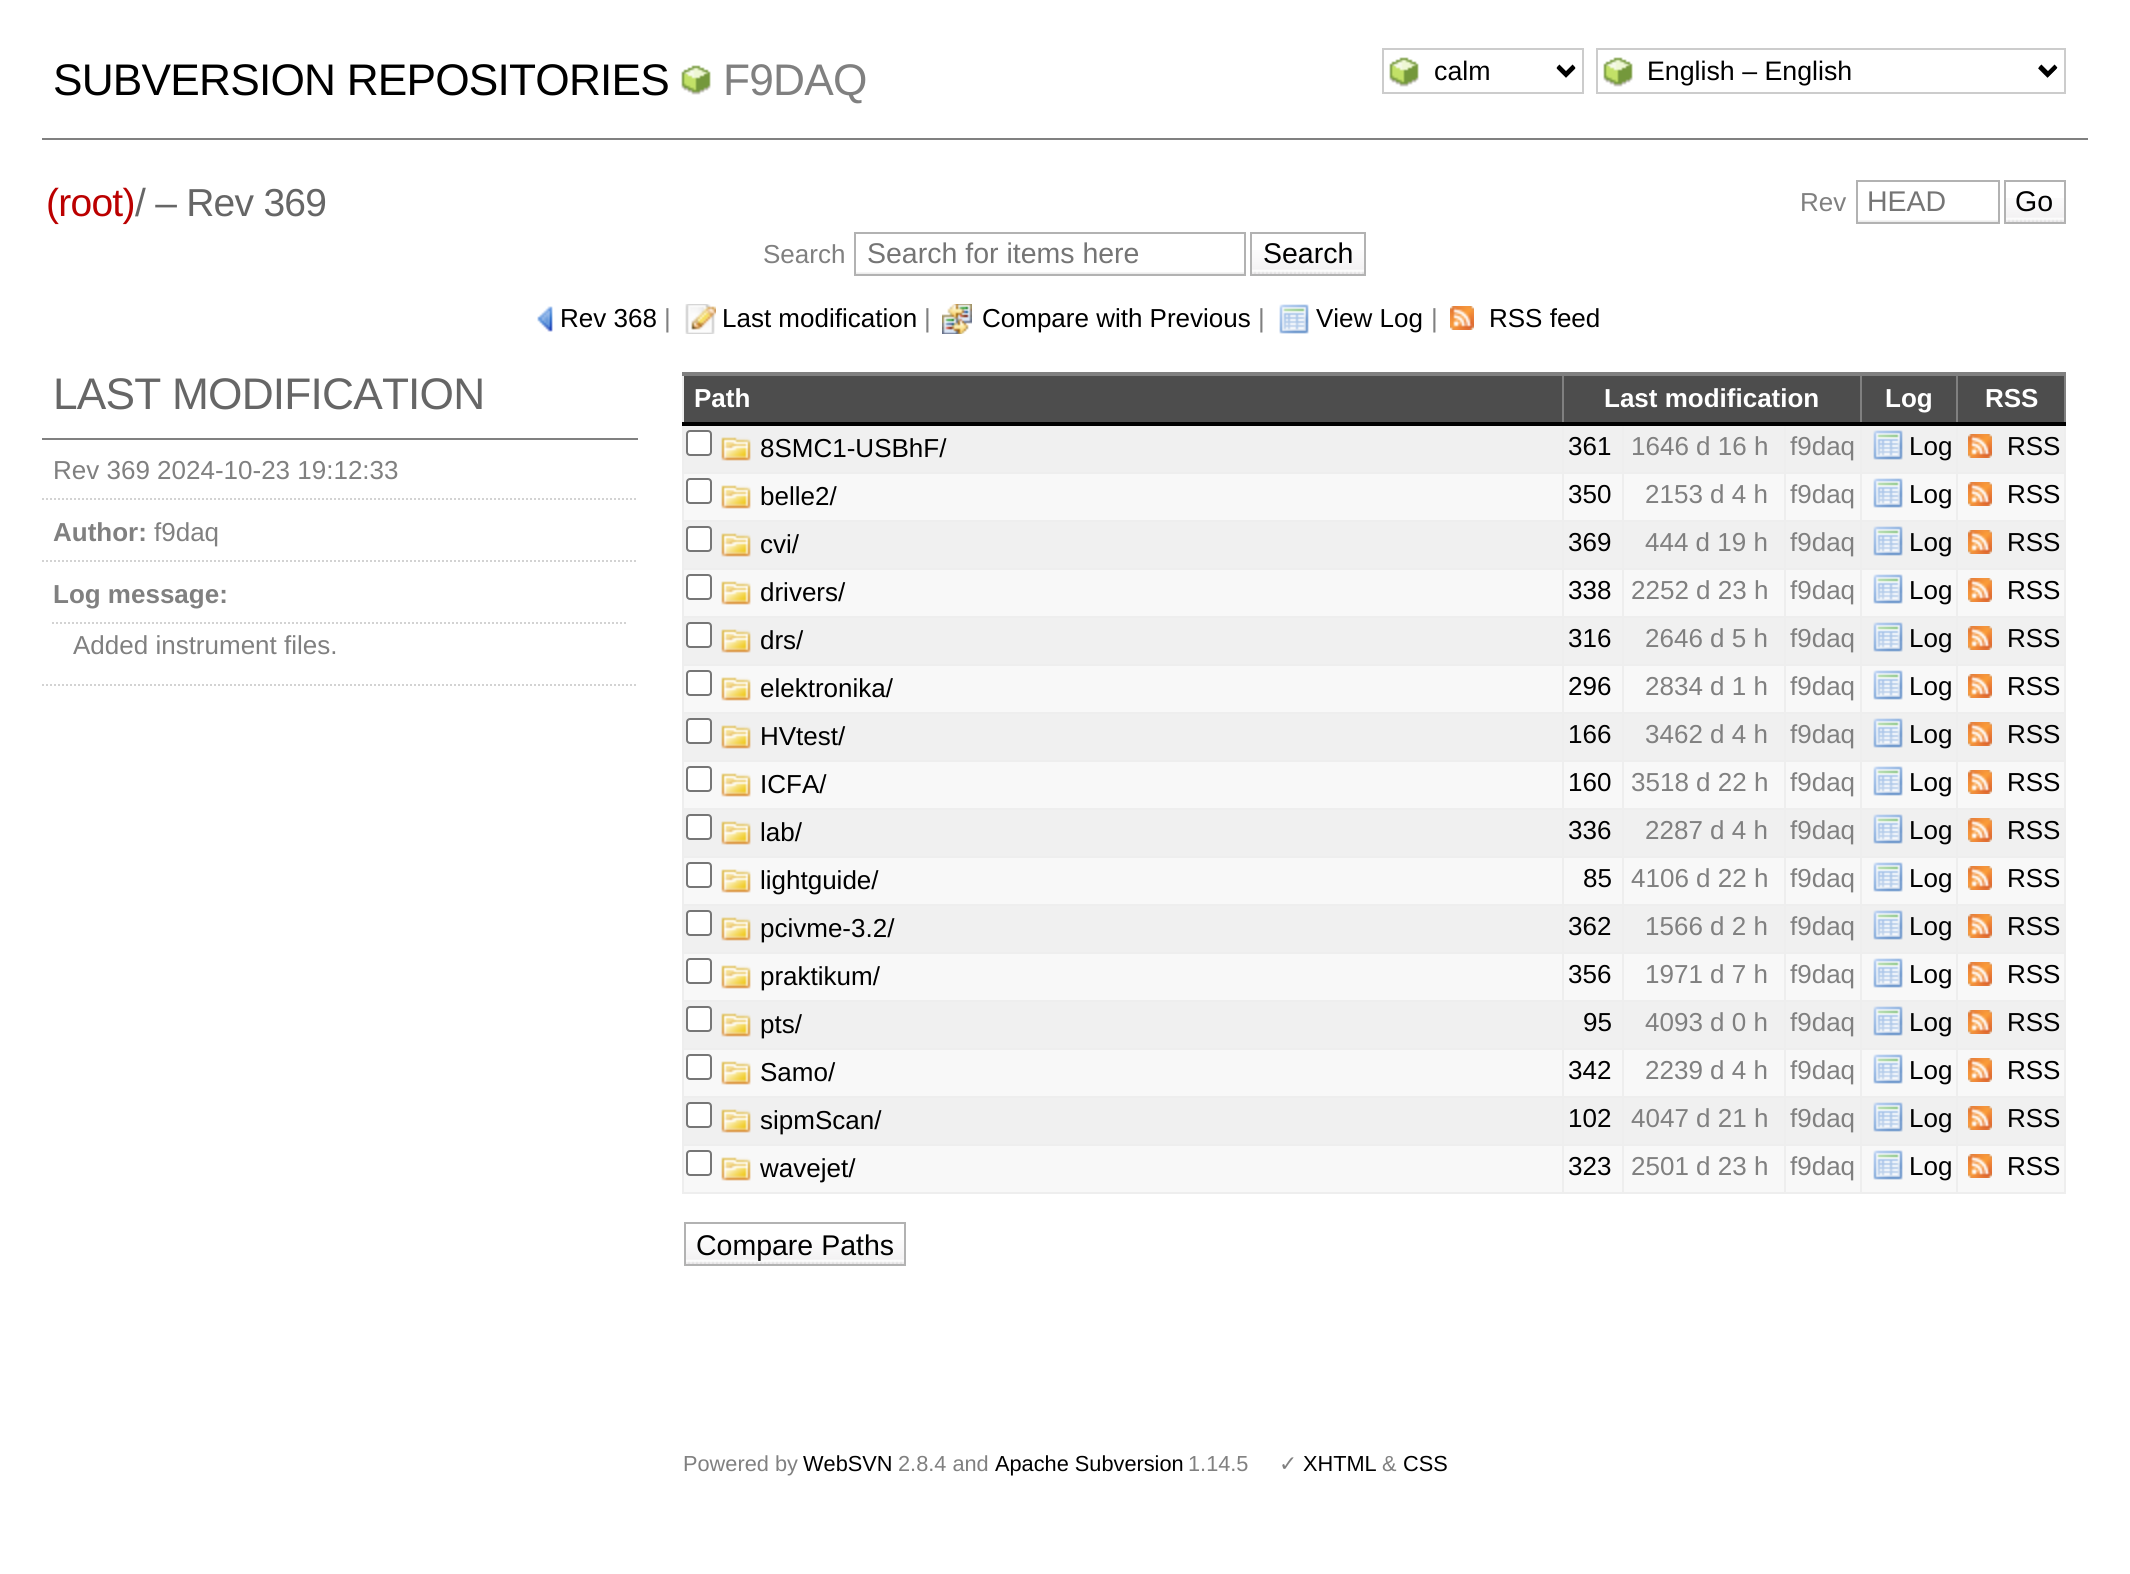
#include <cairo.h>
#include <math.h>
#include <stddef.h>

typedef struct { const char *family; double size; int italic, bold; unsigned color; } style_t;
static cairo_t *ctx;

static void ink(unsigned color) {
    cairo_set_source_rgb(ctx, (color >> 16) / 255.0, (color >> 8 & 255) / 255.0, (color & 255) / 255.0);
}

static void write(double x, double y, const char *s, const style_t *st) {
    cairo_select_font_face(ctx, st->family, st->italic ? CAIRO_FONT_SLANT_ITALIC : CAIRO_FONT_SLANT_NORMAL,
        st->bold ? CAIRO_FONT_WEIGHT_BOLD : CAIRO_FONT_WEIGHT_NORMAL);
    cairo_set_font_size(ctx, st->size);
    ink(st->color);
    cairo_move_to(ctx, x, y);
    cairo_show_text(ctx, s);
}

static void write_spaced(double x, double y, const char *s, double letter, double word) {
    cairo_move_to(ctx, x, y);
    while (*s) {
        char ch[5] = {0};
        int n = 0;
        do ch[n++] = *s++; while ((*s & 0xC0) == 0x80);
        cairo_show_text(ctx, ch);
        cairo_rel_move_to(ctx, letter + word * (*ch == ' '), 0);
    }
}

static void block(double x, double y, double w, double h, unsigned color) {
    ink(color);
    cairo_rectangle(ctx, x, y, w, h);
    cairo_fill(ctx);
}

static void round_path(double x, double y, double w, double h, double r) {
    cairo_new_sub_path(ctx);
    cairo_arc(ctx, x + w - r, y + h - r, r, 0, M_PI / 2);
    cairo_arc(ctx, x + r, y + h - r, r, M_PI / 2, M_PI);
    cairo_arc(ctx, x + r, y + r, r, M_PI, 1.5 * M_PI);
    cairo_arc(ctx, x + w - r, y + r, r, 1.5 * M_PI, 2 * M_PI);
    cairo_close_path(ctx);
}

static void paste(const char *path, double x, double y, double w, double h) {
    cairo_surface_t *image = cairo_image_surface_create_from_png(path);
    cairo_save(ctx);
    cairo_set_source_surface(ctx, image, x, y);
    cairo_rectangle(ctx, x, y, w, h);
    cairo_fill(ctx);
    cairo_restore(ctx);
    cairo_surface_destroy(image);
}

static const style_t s1 = {"Liberation Sans", 26.75, 0, 0, 0x000000};
static const style_t s2 = {"Liberation Sans", 26, 0, 0, 0x808080};
static const style_t s3 = {"Liberation Sans", 28.5, 0, 0, 0x757575};
static const style_t s4 = {"Liberation Sans", 28.5, 0, 0, 0x000000};
static const style_t s5 = {"Liberation Sans", 26, 0, 0, 0x000000};
static const style_t s6 = {"Liberation Sans", 26, 0, 1, 0x808080};
static const style_t s7 = {"Liberation Sans", 26, 0, 1, 0xffffff};
static const style_t s8 = {"Liberation Sans", 21.75, 0, 0, 0x808080};
static const style_t s9 = {"Liberation Sans", 21.75, 0, 0, 0x000000};
static const style_t s10 = {"DejaVu Sans", 21.75, 0, 0, 0x808080};

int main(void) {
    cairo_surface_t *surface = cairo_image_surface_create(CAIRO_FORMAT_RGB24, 2130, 1574);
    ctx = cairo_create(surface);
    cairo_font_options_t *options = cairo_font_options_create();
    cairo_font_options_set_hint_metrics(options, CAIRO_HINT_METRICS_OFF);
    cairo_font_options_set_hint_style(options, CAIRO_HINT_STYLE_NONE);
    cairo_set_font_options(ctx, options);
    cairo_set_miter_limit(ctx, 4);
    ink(0xffffff);
    cairo_paint(ctx);
    block(42, 138, 2046, 2, 0x808080);
    cairo_select_font_face(ctx, "Liberation Sans", CAIRO_FONT_SLANT_NORMAL, CAIRO_FONT_WEIGHT_NORMAL);
    cairo_set_font_size(ctx, 44.25);
    ink(0x000000);
    write_spaced(53, 95, "SUBVERSION REPOSITORIES", -0.8, 0);
    paste("pic1.png", 681, 65, 30, 30);
    ink(0x808080);
    write_spaced(723, 95, "F9DAQ", -0.8, 0);
    paste("pic2.png", 1389, 57, 187, 30);
    cairo_rectangle(ctx, 1383, 49, 200, 44);
    ink(0xcccccc);
    cairo_stroke(ctx);
    cairo_new_path(ctx);
    cairo_move_to(ctx, 1558, 67);
    cairo_line_to(ctx, 1566, 75);
    cairo_line_to(ctx, 1574, 67);
    ink(0x000000);
    cairo_set_line_width(ctx, 4);
    cairo_stroke(ctx);
    write(1434, 80, "calm", &s1);
    paste("pic3.png", 1603, 57, 455, 30);
    cairo_rectangle(ctx, 1597, 49, 468, 44);
    ink(0xcccccc);
    cairo_set_line_width(ctx, 2);
    cairo_stroke(ctx);
    cairo_new_path(ctx);
    cairo_move_to(ctx, 2039.5, 67);
    cairo_line_to(ctx, 2047.5, 75);
    cairo_line_to(ctx, 2055.5, 67);
    ink(0x000000);
    cairo_set_line_width(ctx, 4);
    cairo_stroke(ctx);
    write(1647, 80, "English – English", &s1);
    cairo_set_font_size(ctx, 39);
    ink(0xbb0000);
    write_spaced(46, 216, "(root)", -0.75, 0);
    ink(0x666666);
    write_spaced(135, 216, "/ – Rev 369", -0.75, 0);
    write(1800, 211, "Rev", &s2);
    paste("pic4.png", 1858, 220, 140, 2);
    cairo_rectangle(ctx, 1857, 181, 142, 42);
    ink(0xb2b2b2);
    cairo_set_line_width(ctx, 2);
    cairo_stroke(ctx);
    write(1867, 211, "HEAD", &s3);
    paste("pic5.png", 2006, 198, 58, 24);
    cairo_rectangle(ctx, 2005, 181, 60, 42);
    ink(0xb2b2b2);
    cairo_stroke(ctx);
    write(2015, 211, "Go", &s4);
    write(763, 263, "Search", &s2);
    paste("pic6.png", 856, 272, 388, 2);
    cairo_rectangle(ctx, 855, 233, 390, 42);
    ink(0xb2b2b2);
    cairo_stroke(ctx);
    write(867, 263, "Search for items here", &s3);
    paste("pic7.png", 1252, 250, 112, 24);
    cairo_rectangle(ctx, 1251, 233, 114, 42);
    ink(0xb2b2b2);
    cairo_stroke(ctx);
    write(1263, 263, "Search", &s4);
    paste("pic8.png", 537, 306, 16, 26);
    write(560, 327, "Rev 368", &s5);
    write(664, 327, "|", &s2);
    paste("pic9.png", 685, 304, 31, 30);
    write(722, 327, "Last modification", &s5);
    write(924, 327, "|", &s2);
    paste("pic10.png", 942, 304, 30, 30);
    write(982, 327, "Compare with Previous", &s5);
    write(1258, 327, "|", &s2);
    paste("pic11.png", 1279, 304, 30, 30);
    write(1316, 327, "View Log", &s5);
    write(1431, 327, "|", &s2);
    paste("pic12.png", 1450, 306, 24, 24);
    write(1489, 327, "RSS feed", &s5);
    block(42, 438, 596, 2, 0x808080);
    cairo_set_font_size(ctx, 44.25);
    ink(0x666666);
    write_spaced(53, 409, "LAST MODIFICATION", -0.8, 0);
    cairo_new_path(ctx);
    cairo_move_to(ctx, 42, 499);
    cairo_line_to(ctx, 638, 499);
    ink(0xd3d3d3);
    cairo_set_dash(ctx, (double[]){2, 2}, 2, 0);
    cairo_stroke(ctx);
    write(53, 479, "Rev 369 2024-10-23 19:12:33", &s2);
    cairo_new_path(ctx);
    cairo_move_to(ctx, 42, 561);
    cairo_line_to(ctx, 638, 561);
    ink(0xd3d3d3);
    cairo_stroke(ctx);
    write(53, 541, "Author:", &s6);
    write(154, 541, "f9daq", &s2);
    cairo_new_path(ctx);
    cairo_move_to(ctx, 42, 685);
    cairo_line_to(ctx, 638, 685);
    ink(0xd3d3d3);
    cairo_stroke(ctx);
    write(53, 603, "Log message:", &s6);
    cairo_new_path(ctx);
    cairo_move_to(ctx, 52, 623);
    cairo_line_to(ctx, 628, 623);
    ink(0xd3d3d3);
    cairo_stroke(ctx);
    write(73, 654, "Added instrument files.", &s2);
    block(684, 376, 1380, 46, 0x4d4d4d);
    block(1956, 472, 110, 2, 0xeeeeee);
    block(1956, 520, 110, 2, 0xeeeeee);
    block(1956, 568, 110, 2, 0xeeeeee);
    block(1956, 616, 110, 2, 0xeeeeee);
    block(1956, 664, 110, 2, 0xeeeeee);
    block(1956, 712, 110, 2, 0xeeeeee);
    block(1956, 760, 110, 2, 0xeeeeee);
    block(1956, 808, 110, 2, 0xeeeeee);
    block(1956, 856, 110, 2, 0xeeeeee);
    block(1956, 904, 110, 2, 0xeeeeee);
    block(1956, 952, 110, 2, 0xeeeeee);
    block(1956, 1000, 110, 2, 0xeeeeee);
    block(1956, 1048, 110, 2, 0xeeeeee);
    block(1956, 1096, 110, 2, 0xeeeeee);
    block(1956, 1144, 110, 2, 0xeeeeee);
    block(2064, 1144, 2, 50, 0xeeeeee);
    block(1956, 1192, 110, 2, 0xeeeeee);
    block(1956, 1144, 2, 50, 0xeeeeee);
    block(1860, 1144, 98, 2, 0xeeeeee);
    block(1956, 1096, 2, 50, 0xeeeeee);
    block(1860, 1096, 98, 2, 0xeeeeee);
    block(1956, 1048, 2, 50, 0xeeeeee);
    block(1860, 1048, 98, 2, 0xeeeeee);
    block(1956, 1000, 2, 50, 0xeeeeee);
    block(1860, 1000, 98, 2, 0xeeeeee);
    block(1956, 952, 2, 50, 0xeeeeee);
    block(1860, 952, 98, 2, 0xeeeeee);
    block(1956, 904, 2, 50, 0xeeeeee);
    block(1860, 904, 98, 2, 0xeeeeee);
    block(1956, 856, 2, 50, 0xeeeeee);
    block(1860, 856, 98, 2, 0xeeeeee);
    block(1956, 808, 2, 50, 0xeeeeee);
    block(1860, 808, 98, 2, 0xeeeeee);
    block(1956, 760, 2, 50, 0xeeeeee);
    block(1860, 760, 98, 2, 0xeeeeee);
    block(1956, 712, 2, 50, 0xeeeeee);
    block(1860, 712, 98, 2, 0xeeeeee);
    block(1956, 664, 2, 50, 0xeeeeee);
    block(1860, 664, 98, 2, 0xeeeeee);
    block(1956, 616, 2, 50, 0xeeeeee);
    block(1860, 616, 98, 2, 0xeeeeee);
    block(1956, 568, 2, 50, 0xeeeeee);
    block(1860, 568, 98, 2, 0xeeeeee);
    block(1956, 520, 2, 50, 0xeeeeee);
    block(1860, 520, 98, 2, 0xeeeeee);
    block(1956, 472, 2, 50, 0xeeeeee);
    block(1860, 472, 98, 2, 0xeeeeee);
    block(1860, 1192, 98, 2, 0xeeeeee);
    block(1860, 1144, 2, 50, 0xeeeeee);
    block(1784, 1144, 78, 2, 0xeeeeee);
    block(1860, 1096, 2, 50, 0xeeeeee);
    block(1784, 1096, 78, 2, 0xeeeeee);
    block(1860, 1048, 2, 50, 0xeeeeee);
    block(1784, 1048, 78, 2, 0xeeeeee);
    block(1860, 1000, 2, 50, 0xeeeeee);
    block(1784, 1000, 78, 2, 0xeeeeee);
    block(1860, 952, 2, 50, 0xeeeeee);
    block(1784, 952, 78, 2, 0xeeeeee);
    block(1860, 904, 2, 50, 0xeeeeee);
    block(1784, 904, 78, 2, 0xeeeeee);
    block(1860, 856, 2, 50, 0xeeeeee);
    block(1784, 856, 78, 2, 0xeeeeee);
    block(1860, 808, 2, 50, 0xeeeeee);
    block(1784, 808, 78, 2, 0xeeeeee);
    block(1860, 760, 2, 50, 0xeeeeee);
    block(1784, 760, 78, 2, 0xeeeeee);
    block(1860, 712, 2, 50, 0xeeeeee);
    block(1784, 712, 78, 2, 0xeeeeee);
    block(1860, 664, 2, 50, 0xeeeeee);
    block(1784, 664, 78, 2, 0xeeeeee);
    block(1860, 616, 2, 50, 0xeeeeee);
    block(1784, 616, 78, 2, 0xeeeeee);
    block(1860, 568, 2, 50, 0xeeeeee);
    block(1784, 568, 78, 2, 0xeeeeee);
    block(1860, 520, 2, 50, 0xeeeeee);
    block(1784, 520, 78, 2, 0xeeeeee);
    block(1860, 472, 2, 50, 0xeeeeee);
    block(1784, 472, 78, 2, 0xeeeeee);
    block(1784, 1192, 78, 2, 0xeeeeee);
    block(1784, 1144, 2, 50, 0xeeeeee);
    block(1622, 1144, 164, 2, 0xeeeeee);
    block(1784, 1096, 2, 50, 0xeeeeee);
    block(1622, 1096, 164, 2, 0xeeeeee);
    block(1784, 1048, 2, 50, 0xeeeeee);
    block(1622, 1048, 164, 2, 0xeeeeee);
    block(1784, 1000, 2, 50, 0xeeeeee);
    block(1622, 1000, 164, 2, 0xeeeeee);
    block(1784, 952, 2, 50, 0xeeeeee);
    block(1622, 952, 164, 2, 0xeeeeee);
    block(1784, 904, 2, 50, 0xeeeeee);
    block(1622, 904, 164, 2, 0xeeeeee);
    block(1784, 856, 2, 50, 0xeeeeee);
    block(1622, 856, 164, 2, 0xeeeeee);
    block(1784, 808, 2, 50, 0xeeeeee);
    block(1622, 808, 164, 2, 0xeeeeee);
    block(1784, 760, 2, 50, 0xeeeeee);
    block(1622, 760, 164, 2, 0xeeeeee);
    block(1784, 712, 2, 50, 0xeeeeee);
    block(1622, 712, 164, 2, 0xeeeeee);
    block(1784, 664, 2, 50, 0xeeeeee);
    block(1622, 664, 164, 2, 0xeeeeee);
    block(1784, 616, 2, 50, 0xeeeeee);
    block(1622, 616, 164, 2, 0xeeeeee);
    block(1784, 568, 2, 50, 0xeeeeee);
    block(1622, 568, 164, 2, 0xeeeeee);
    block(1784, 520, 2, 50, 0xeeeeee);
    block(1622, 520, 164, 2, 0xeeeeee);
    block(1784, 472, 2, 50, 0xeeeeee);
    block(1622, 472, 164, 2, 0xeeeeee);
    block(1622, 1192, 164, 2, 0xeeeeee);
    block(1622, 1144, 2, 50, 0xeeeeee);
    block(1562, 1144, 62, 2, 0xeeeeee);
    block(1622, 1096, 2, 50, 0xeeeeee);
    block(1562, 1096, 62, 2, 0xeeeeee);
    block(1622, 1048, 2, 50, 0xeeeeee);
    block(1562, 1048, 62, 2, 0xeeeeee);
    block(1622, 1000, 2, 50, 0xeeeeee);
    block(1562, 1000, 62, 2, 0xeeeeee);
    block(1622, 952, 2, 50, 0xeeeeee);
    block(1562, 952, 62, 2, 0xeeeeee);
    block(1622, 904, 2, 50, 0xeeeeee);
    block(1562, 904, 62, 2, 0xeeeeee);
    block(1622, 856, 2, 50, 0xeeeeee);
    block(1562, 856, 62, 2, 0xeeeeee);
    block(1622, 808, 2, 50, 0xeeeeee);
    block(1562, 808, 62, 2, 0xeeeeee);
    block(1622, 760, 2, 50, 0xeeeeee);
    block(1562, 760, 62, 2, 0xeeeeee);
    block(1622, 712, 2, 50, 0xeeeeee);
    block(1562, 712, 62, 2, 0xeeeeee);
    block(1622, 664, 2, 50, 0xeeeeee);
    block(1562, 664, 62, 2, 0xeeeeee);
    block(1622, 616, 2, 50, 0xeeeeee);
    block(1562, 616, 62, 2, 0xeeeeee);
    block(1622, 568, 2, 50, 0xeeeeee);
    block(1562, 568, 62, 2, 0xeeeeee);
    block(1622, 520, 2, 50, 0xeeeeee);
    block(1562, 520, 62, 2, 0xeeeeee);
    block(1622, 472, 2, 50, 0xeeeeee);
    block(1562, 472, 62, 2, 0xeeeeee);
    block(1562, 1192, 62, 2, 0xeeeeee);
    block(1562, 1144, 2, 50, 0xeeeeee);
    block(682, 1144, 882, 2, 0xeeeeee);
    block(1562, 1096, 2, 50, 0xeeeeee);
    block(682, 1096, 882, 2, 0xeeeeee);
    block(1562, 1048, 2, 50, 0xeeeeee);
    block(682, 1048, 882, 2, 0xeeeeee);
    block(1562, 1000, 2, 50, 0xeeeeee);
    block(682, 1000, 882, 2, 0xeeeeee);
    block(1562, 952, 2, 50, 0xeeeeee);
    block(682, 952, 882, 2, 0xeeeeee);
    block(1562, 904, 2, 50, 0xeeeeee);
    block(682, 904, 882, 2, 0xeeeeee);
    block(1562, 856, 2, 50, 0xeeeeee);
    block(682, 856, 882, 2, 0xeeeeee);
    block(1562, 808, 2, 50, 0xeeeeee);
    block(682, 808, 882, 2, 0xeeeeee);
    block(1562, 760, 2, 50, 0xeeeeee);
    block(682, 760, 882, 2, 0xeeeeee);
    block(1562, 712, 2, 50, 0xeeeeee);
    block(682, 712, 882, 2, 0xeeeeee);
    block(1562, 664, 2, 50, 0xeeeeee);
    block(682, 664, 882, 2, 0xeeeeee);
    block(1562, 616, 2, 50, 0xeeeeee);
    block(682, 616, 882, 2, 0xeeeeee);
    block(1562, 568, 2, 50, 0xeeeeee);
    block(682, 568, 882, 2, 0xeeeeee);
    block(1562, 520, 2, 50, 0xeeeeee);
    block(682, 520, 882, 2, 0xeeeeee);
    block(1562, 472, 2, 50, 0xeeeeee);
    block(682, 472, 882, 2, 0xeeeeee);
    block(1562, 424, 2, 50, 0xeeeeee);
    block(1562, 374, 2, 52, 0x808080);
    write(694, 407, "Path", &s7);
    block(1860, 424, 2, 50, 0xeeeeee);
    block(1860, 374, 2, 52, 0x808080);
    write(1604, 407, "Last modification", &s7);
    block(1956, 424, 2, 50, 0xeeeeee);
    block(1956, 374, 2, 52, 0x808080);
    write(1885, 407, "Log", &s7);
    block(2064, 1096, 2, 50, 0xeeeeee);
    block(2064, 1048, 2, 50, 0xeeeeee);
    block(2064, 1000, 2, 50, 0xeeeeee);
    block(2064, 952, 2, 50, 0xeeeeee);
    block(2064, 904, 2, 50, 0xeeeeee);
    block(2064, 856, 2, 50, 0xeeeeee);
    block(2064, 808, 2, 50, 0xeeeeee);
    block(2064, 760, 2, 50, 0xeeeeee);
    block(2064, 712, 2, 50, 0xeeeeee);
    block(2064, 664, 2, 50, 0xeeeeee);
    block(2064, 616, 2, 50, 0xeeeeee);
    block(2064, 568, 2, 50, 0xeeeeee);
    block(2064, 520, 2, 50, 0xeeeeee);
    block(2064, 424, 2, 98, 0xeeeeee);
    block(2064, 374, 2, 52, 0x808080);
    block(682, 1192, 882, 2, 0xeeeeee);
    block(682, 1144, 2, 50, 0xeeeeee);
    block(682, 1096, 2, 50, 0xeeeeee);
    block(682, 1048, 2, 50, 0xeeeeee);
    block(682, 1000, 2, 50, 0xeeeeee);
    block(682, 952, 2, 50, 0xeeeeee);
    block(682, 904, 2, 50, 0xeeeeee);
    block(682, 856, 2, 50, 0xeeeeee);
    block(682, 808, 2, 50, 0xeeeeee);
    block(682, 760, 2, 50, 0xeeeeee);
    block(682, 712, 2, 50, 0xeeeeee);
    block(682, 664, 2, 50, 0xeeeeee);
    block(682, 616, 2, 50, 0xeeeeee);
    block(682, 568, 2, 50, 0xeeeeee);
    block(682, 520, 2, 50, 0xeeeeee);
    block(682, 374, 2, 148, 0xeeeeee);
    block(682, 372, 1384, 4, 0x808080);
    block(1622, 424, 2, 50, 0xeeeeee);
    block(1784, 424, 2, 50, 0xeeeeee);
    block(682, 422, 1384, 4, 0x000000);
    write(1985, 407, "RSS", &s7);
    block(684, 426, 878, 46, 0xf0f0f0);
    ink(0xffffff);
    round_path(687, 431, 24, 24, 3);
    cairo_fill_preserve(ctx);
    ink(0x767676);
    cairo_set_dash(ctx, NULL, 0, 0);
    cairo_stroke(ctx);
    paste("pic13.png", 721, 437, 30, 24);
    write(760, 457, "8SMC1-USBhF/", &s5);
    block(1564, 426, 58, 46, 0xf0f0f0);
    write(1568, 455, "361", &s5);
    block(1624, 426, 160, 46, 0xf0f0f0);
    write(1631, 455, "1646 d 16 h", &s2);
    block(1786, 426, 74, 46, 0xf0f0f0);
    write(1790, 455, "f9daq", &s2);
    block(1862, 426, 94, 46, 0xf0f0f0);
    paste("pic14.png", 1873, 430, 30, 30);
    write(1909, 455, "Log", &s5);
    block(1958, 426, 106, 46, 0xf0f0f0);
    paste("pic15.png", 1968, 434, 24, 24);
    write(2007, 455, "RSS", &s5);
    block(684, 474, 878, 46, 0xf8f8f8);
    ink(0xffffff);
    round_path(687, 479, 24, 24, 3);
    cairo_fill_preserve(ctx);
    ink(0x767676);
    cairo_stroke(ctx);
    paste("pic16.png", 721, 485, 30, 24);
    write(760, 505, "belle2/", &s5);
    block(1564, 474, 58, 46, 0xf8f8f8);
    write(1568, 503, "350", &s5);
    block(1624, 474, 160, 46, 0xf8f8f8);
    write(1645, 503, "2153 d 4 h", &s2);
    block(1786, 474, 74, 46, 0xf8f8f8);
    write(1790, 503, "f9daq", &s2);
    block(1862, 474, 94, 46, 0xf8f8f8);
    paste("pic17.png", 1873, 478, 30, 30);
    write(1909, 503, "Log", &s5);
    block(1958, 474, 106, 46, 0xf8f8f8);
    paste("pic18.png", 1968, 482, 24, 24);
    write(2007, 503, "RSS", &s5);
    block(684, 522, 878, 46, 0xf0f0f0);
    ink(0xffffff);
    round_path(687, 527, 24, 24, 3);
    cairo_fill_preserve(ctx);
    ink(0x767676);
    cairo_stroke(ctx);
    paste("pic13.png", 721, 533, 30, 24);
    write(760, 553, "cvi/", &s5);
    block(1564, 522, 58, 46, 0xf0f0f0);
    write(1568, 551, "369", &s5);
    block(1624, 522, 160, 46, 0xf0f0f0);
    write(1645, 551, "444 d 19 h", &s2);
    block(1786, 522, 74, 46, 0xf0f0f0);
    write(1790, 551, "f9daq", &s2);
    block(1862, 522, 94, 46, 0xf0f0f0);
    paste("pic14.png", 1873, 526, 30, 30);
    write(1909, 551, "Log", &s5);
    block(1958, 522, 106, 46, 0xf0f0f0);
    paste("pic15.png", 1968, 530, 24, 24);
    write(2007, 551, "RSS", &s5);
    block(684, 570, 878, 46, 0xf8f8f8);
    ink(0xffffff);
    round_path(687, 575, 24, 24, 3);
    cairo_fill_preserve(ctx);
    ink(0x767676);
    cairo_stroke(ctx);
    paste("pic16.png", 721, 581, 30, 24);
    write(760, 601, "drivers/", &s5);
    block(1564, 570, 58, 46, 0xf8f8f8);
    write(1568, 599, "338", &s5);
    block(1624, 570, 160, 46, 0xf8f8f8);
    write(1631, 599, "2252 d 23 h", &s2);
    block(1786, 570, 74, 46, 0xf8f8f8);
    write(1790, 599, "f9daq", &s2);
    block(1862, 570, 94, 46, 0xf8f8f8);
    paste("pic17.png", 1873, 574, 30, 30);
    write(1909, 599, "Log", &s5);
    block(1958, 570, 106, 46, 0xf8f8f8);
    paste("pic18.png", 1968, 578, 24, 24);
    write(2007, 599, "RSS", &s5);
    block(684, 618, 878, 46, 0xf0f0f0);
    ink(0xffffff);
    round_path(687, 623, 24, 24, 3);
    cairo_fill_preserve(ctx);
    ink(0x767676);
    cairo_stroke(ctx);
    paste("pic13.png", 721, 629, 30, 24);
    write(760, 649, "drs/", &s5);
    block(1564, 618, 58, 46, 0xf0f0f0);
    write(1568, 647, "316", &s5);
    block(1624, 618, 160, 46, 0xf0f0f0);
    write(1645, 647, "2646 d 5 h", &s2);
    block(1786, 618, 74, 46, 0xf0f0f0);
    write(1790, 647, "f9daq", &s2);
    block(1862, 618, 94, 46, 0xf0f0f0);
    paste("pic14.png", 1873, 622, 30, 30);
    write(1909, 647, "Log", &s5);
    block(1958, 618, 106, 46, 0xf0f0f0);
    paste("pic15.png", 1968, 626, 24, 24);
    write(2007, 647, "RSS", &s5);
    block(684, 666, 878, 46, 0xf8f8f8);
    ink(0xffffff);
    round_path(687, 671, 24, 24, 3);
    cairo_fill_preserve(ctx);
    ink(0x767676);
    cairo_stroke(ctx);
    paste("pic16.png", 721, 677, 30, 24);
    write(760, 697, "elektronika/", &s5);
    block(1564, 666, 58, 46, 0xf8f8f8);
    write(1568, 695, "296", &s5);
    block(1624, 666, 160, 46, 0xf8f8f8);
    write(1645, 695, "2834 d 1 h", &s2);
    block(1786, 666, 74, 46, 0xf8f8f8);
    write(1790, 695, "f9daq", &s2);
    block(1862, 666, 94, 46, 0xf8f8f8);
    paste("pic17.png", 1873, 670, 30, 30);
    write(1909, 695, "Log", &s5);
    block(1958, 666, 106, 46, 0xf8f8f8);
    paste("pic18.png", 1968, 674, 24, 24);
    write(2007, 695, "RSS", &s5);
    block(684, 714, 878, 46, 0xf0f0f0);
    ink(0xffffff);
    round_path(687, 719, 24, 24, 3);
    cairo_fill_preserve(ctx);
    ink(0x767676);
    cairo_stroke(ctx);
    paste("pic13.png", 721, 725, 30, 24);
    write(760, 745, "HVtest/", &s5);
    block(1564, 714, 58, 46, 0xf0f0f0);
    write(1568, 743, "166", &s5);
    block(1624, 714, 160, 46, 0xf0f0f0);
    write(1645, 743, "3462 d 4 h", &s2);
    block(1786, 714, 74, 46, 0xf0f0f0);
    write(1790, 743, "f9daq", &s2);
    block(1862, 714, 94, 46, 0xf0f0f0);
    paste("pic14.png", 1873, 718, 30, 30);
    write(1909, 743, "Log", &s5);
    block(1958, 714, 106, 46, 0xf0f0f0);
    paste("pic15.png", 1968, 722, 24, 24);
    write(2007, 743, "RSS", &s5);
    block(684, 762, 878, 46, 0xf8f8f8);
    ink(0xffffff);
    round_path(687, 767, 24, 24, 3);
    cairo_fill_preserve(ctx);
    ink(0x767676);
    cairo_stroke(ctx);
    paste("pic16.png", 721, 773, 30, 24);
    write(760, 793, "ICFA/", &s5);
    block(1564, 762, 58, 46, 0xf8f8f8);
    write(1568, 791, "160", &s5);
    block(1624, 762, 160, 46, 0xf8f8f8);
    write(1631, 791, "3518 d 22 h", &s2);
    block(1786, 762, 74, 46, 0xf8f8f8);
    write(1790, 791, "f9daq", &s2);
    block(1862, 762, 94, 46, 0xf8f8f8);
    paste("pic17.png", 1873, 766, 30, 30);
    write(1909, 791, "Log", &s5);
    block(1958, 762, 106, 46, 0xf8f8f8);
    paste("pic18.png", 1968, 770, 24, 24);
    write(2007, 791, "RSS", &s5);
    block(684, 810, 878, 46, 0xf0f0f0);
    ink(0xffffff);
    round_path(687, 815, 24, 24, 3);
    cairo_fill_preserve(ctx);
    ink(0x767676);
    cairo_stroke(ctx);
    paste("pic13.png", 721, 821, 30, 24);
    write(760, 841, "lab/", &s5);
    block(1564, 810, 58, 46, 0xf0f0f0);
    write(1568, 839, "336", &s5);
    block(1624, 810, 160, 46, 0xf0f0f0);
    write(1645, 839, "2287 d 4 h", &s2);
    block(1786, 810, 74, 46, 0xf0f0f0);
    write(1790, 839, "f9daq", &s2);
    block(1862, 810, 94, 46, 0xf0f0f0);
    paste("pic14.png", 1873, 814, 30, 30);
    write(1909, 839, "Log", &s5);
    block(1958, 810, 106, 46, 0xf0f0f0);
    paste("pic15.png", 1968, 818, 24, 24);
    write(2007, 839, "RSS", &s5);
    block(684, 858, 878, 46, 0xf8f8f8);
    ink(0xffffff);
    round_path(687, 863, 24, 24, 3);
    cairo_fill_preserve(ctx);
    ink(0x767676);
    cairo_stroke(ctx);
    paste("pic16.png", 721, 869, 30, 24);
    write(760, 889, "lightguide/", &s5);
    block(1564, 858, 58, 46, 0xf8f8f8);
    write(1583, 887, "85", &s5);
    block(1624, 858, 160, 46, 0xf8f8f8);
    write(1631, 887, "4106 d 22 h", &s2);
    block(1786, 858, 74, 46, 0xf8f8f8);
    write(1790, 887, "f9daq", &s2);
    block(1862, 858, 94, 46, 0xf8f8f8);
    paste("pic17.png", 1873, 862, 30, 30);
    write(1909, 887, "Log", &s5);
    block(1958, 858, 106, 46, 0xf8f8f8);
    paste("pic18.png", 1968, 866, 24, 24);
    write(2007, 887, "RSS", &s5);
    block(684, 906, 878, 46, 0xf0f0f0);
    ink(0xffffff);
    round_path(687, 911, 24, 24, 3);
    cairo_fill_preserve(ctx);
    ink(0x767676);
    cairo_stroke(ctx);
    paste("pic13.png", 721, 917, 30, 24);
    write(760, 937, "pcivme-3.2/", &s5);
    block(1564, 906, 58, 46, 0xf0f0f0);
    write(1568, 935, "362", &s5);
    block(1624, 906, 160, 46, 0xf0f0f0);
    write(1645, 935, "1566 d 2 h", &s2);
    block(1786, 906, 74, 46, 0xf0f0f0);
    write(1790, 935, "f9daq", &s2);
    block(1862, 906, 94, 46, 0xf0f0f0);
    paste("pic14.png", 1873, 910, 30, 30);
    write(1909, 935, "Log", &s5);
    block(1958, 906, 106, 46, 0xf0f0f0);
    paste("pic15.png", 1968, 914, 24, 24);
    write(2007, 935, "RSS", &s5);
    block(684, 954, 878, 46, 0xf8f8f8);
    ink(0xffffff);
    round_path(687, 959, 24, 24, 3);
    cairo_fill_preserve(ctx);
    ink(0x767676);
    cairo_stroke(ctx);
    paste("pic16.png", 721, 965, 30, 24);
    write(760, 985, "praktikum/", &s5);
    block(1564, 954, 58, 46, 0xf8f8f8);
    write(1568, 983, "356", &s5);
    block(1624, 954, 160, 46, 0xf8f8f8);
    write(1645, 983, "1971 d 7 h", &s2);
    block(1786, 954, 74, 46, 0xf8f8f8);
    write(1790, 983, "f9daq", &s2);
    block(1862, 954, 94, 46, 0xf8f8f8);
    paste("pic17.png", 1873, 958, 30, 30);
    write(1909, 983, "Log", &s5);
    block(1958, 954, 106, 46, 0xf8f8f8);
    paste("pic18.png", 1968, 962, 24, 24);
    write(2007, 983, "RSS", &s5);
    block(684, 1002, 878, 46, 0xf0f0f0);
    ink(0xffffff);
    round_path(687, 1007, 24, 24, 3);
    cairo_fill_preserve(ctx);
    ink(0x767676);
    cairo_stroke(ctx);
    paste("pic13.png", 721, 1013, 30, 24);
    write(760, 1033, "pts/", &s5);
    block(1564, 1002, 58, 46, 0xf0f0f0);
    write(1583, 1031, "95", &s5);
    block(1624, 1002, 160, 46, 0xf0f0f0);
    write(1645, 1031, "4093 d 0 h", &s2);
    block(1786, 1002, 74, 46, 0xf0f0f0);
    write(1790, 1031, "f9daq", &s2);
    block(1862, 1002, 94, 46, 0xf0f0f0);
    paste("pic14.png", 1873, 1006, 30, 30);
    write(1909, 1031, "Log", &s5);
    block(1958, 1002, 106, 46, 0xf0f0f0);
    paste("pic15.png", 1968, 1010, 24, 24);
    write(2007, 1031, "RSS", &s5);
    block(684, 1050, 878, 46, 0xf8f8f8);
    ink(0xffffff);
    round_path(687, 1055, 24, 24, 3);
    cairo_fill_preserve(ctx);
    ink(0x767676);
    cairo_stroke(ctx);
    paste("pic16.png", 721, 1061, 30, 24);
    write(760, 1081, "Samo/", &s5);
    block(1564, 1050, 58, 46, 0xf8f8f8);
    write(1568, 1079, "342", &s5);
    block(1624, 1050, 160, 46, 0xf8f8f8);
    write(1645, 1079, "2239 d 4 h", &s2);
    block(1786, 1050, 74, 46, 0xf8f8f8);
    write(1790, 1079, "f9daq", &s2);
    block(1862, 1050, 94, 46, 0xf8f8f8);
    paste("pic17.png", 1873, 1054, 30, 30);
    write(1909, 1079, "Log", &s5);
    block(1958, 1050, 106, 46, 0xf8f8f8);
    paste("pic18.png", 1968, 1058, 24, 24);
    write(2007, 1079, "RSS", &s5);
    block(684, 1098, 878, 46, 0xf0f0f0);
    ink(0xffffff);
    round_path(687, 1103, 24, 24, 3);
    cairo_fill_preserve(ctx);
    ink(0x767676);
    cairo_stroke(ctx);
    paste("pic13.png", 721, 1109, 30, 24);
    write(760, 1129, "sipmScan/", &s5);
    block(1564, 1098, 58, 46, 0xf0f0f0);
    write(1568, 1127, "102", &s5);
    block(1624, 1098, 160, 46, 0xf0f0f0);
    write(1631, 1127, "4047 d 21 h", &s2);
    block(1786, 1098, 74, 46, 0xf0f0f0);
    write(1790, 1127, "f9daq", &s2);
    block(1862, 1098, 94, 46, 0xf0f0f0);
    paste("pic14.png", 1873, 1102, 30, 30);
    write(1909, 1127, "Log", &s5);
    block(1958, 1098, 106, 46, 0xf0f0f0);
    paste("pic15.png", 1968, 1106, 24, 24);
    write(2007, 1127, "RSS", &s5);
    block(684, 1146, 878, 46, 0xf8f8f8);
    ink(0xffffff);
    round_path(687, 1151, 24, 24, 3);
    cairo_fill_preserve(ctx);
    ink(0x767676);
    cairo_stroke(ctx);
    paste("pic16.png", 721, 1157, 30, 24);
    write(760, 1177, "wavejet/", &s5);
    block(1564, 1146, 58, 46, 0xf8f8f8);
    write(1568, 1175, "323", &s5);
    block(1624, 1146, 160, 46, 0xf8f8f8);
    write(1631, 1175, "2501 d 23 h", &s2);
    block(1786, 1146, 74, 46, 0xf8f8f8);
    write(1790, 1175, "f9daq", &s2);
    block(1862, 1146, 94, 46, 0xf8f8f8);
    paste("pic17.png", 1873, 1150, 30, 30);
    write(1909, 1175, "Log", &s5);
    block(1958, 1146, 106, 46, 0xf8f8f8);
    paste("pic18.png", 1968, 1154, 24, 24);
    write(2007, 1175, "RSS", &s5);
    paste("pic19.png", 686, 1240, 218, 24);
    cairo_rectangle(ctx, 685, 1223, 220, 42);
    ink(0xb2b2b2);
    cairo_stroke(ctx);
    write(696, 1255, "Compare Paths", &s4);
    write(683, 1471, "Powered by", &s8);
    write(803, 1471, "WebSVN", &s9);
    write(898, 1471, "2.8.4 and", &s8);
    write(995, 1471, "Apache Subversion", &s9);
    write(1188, 1471, "1.14.5", &s8);
    write(1279, 1471, "✓", &s10);
    write(1303, 1471, "XHTML", &s9);
    write(1382, 1471, "&", &s8);
    write(1403, 1471, "CSS", &s9);
    cairo_surface_write_to_png(surface, "screenshot.png");
    cairo_font_options_destroy(options);
    cairo_destroy(ctx);
    cairo_surface_destroy(surface);
    return 0;
}
